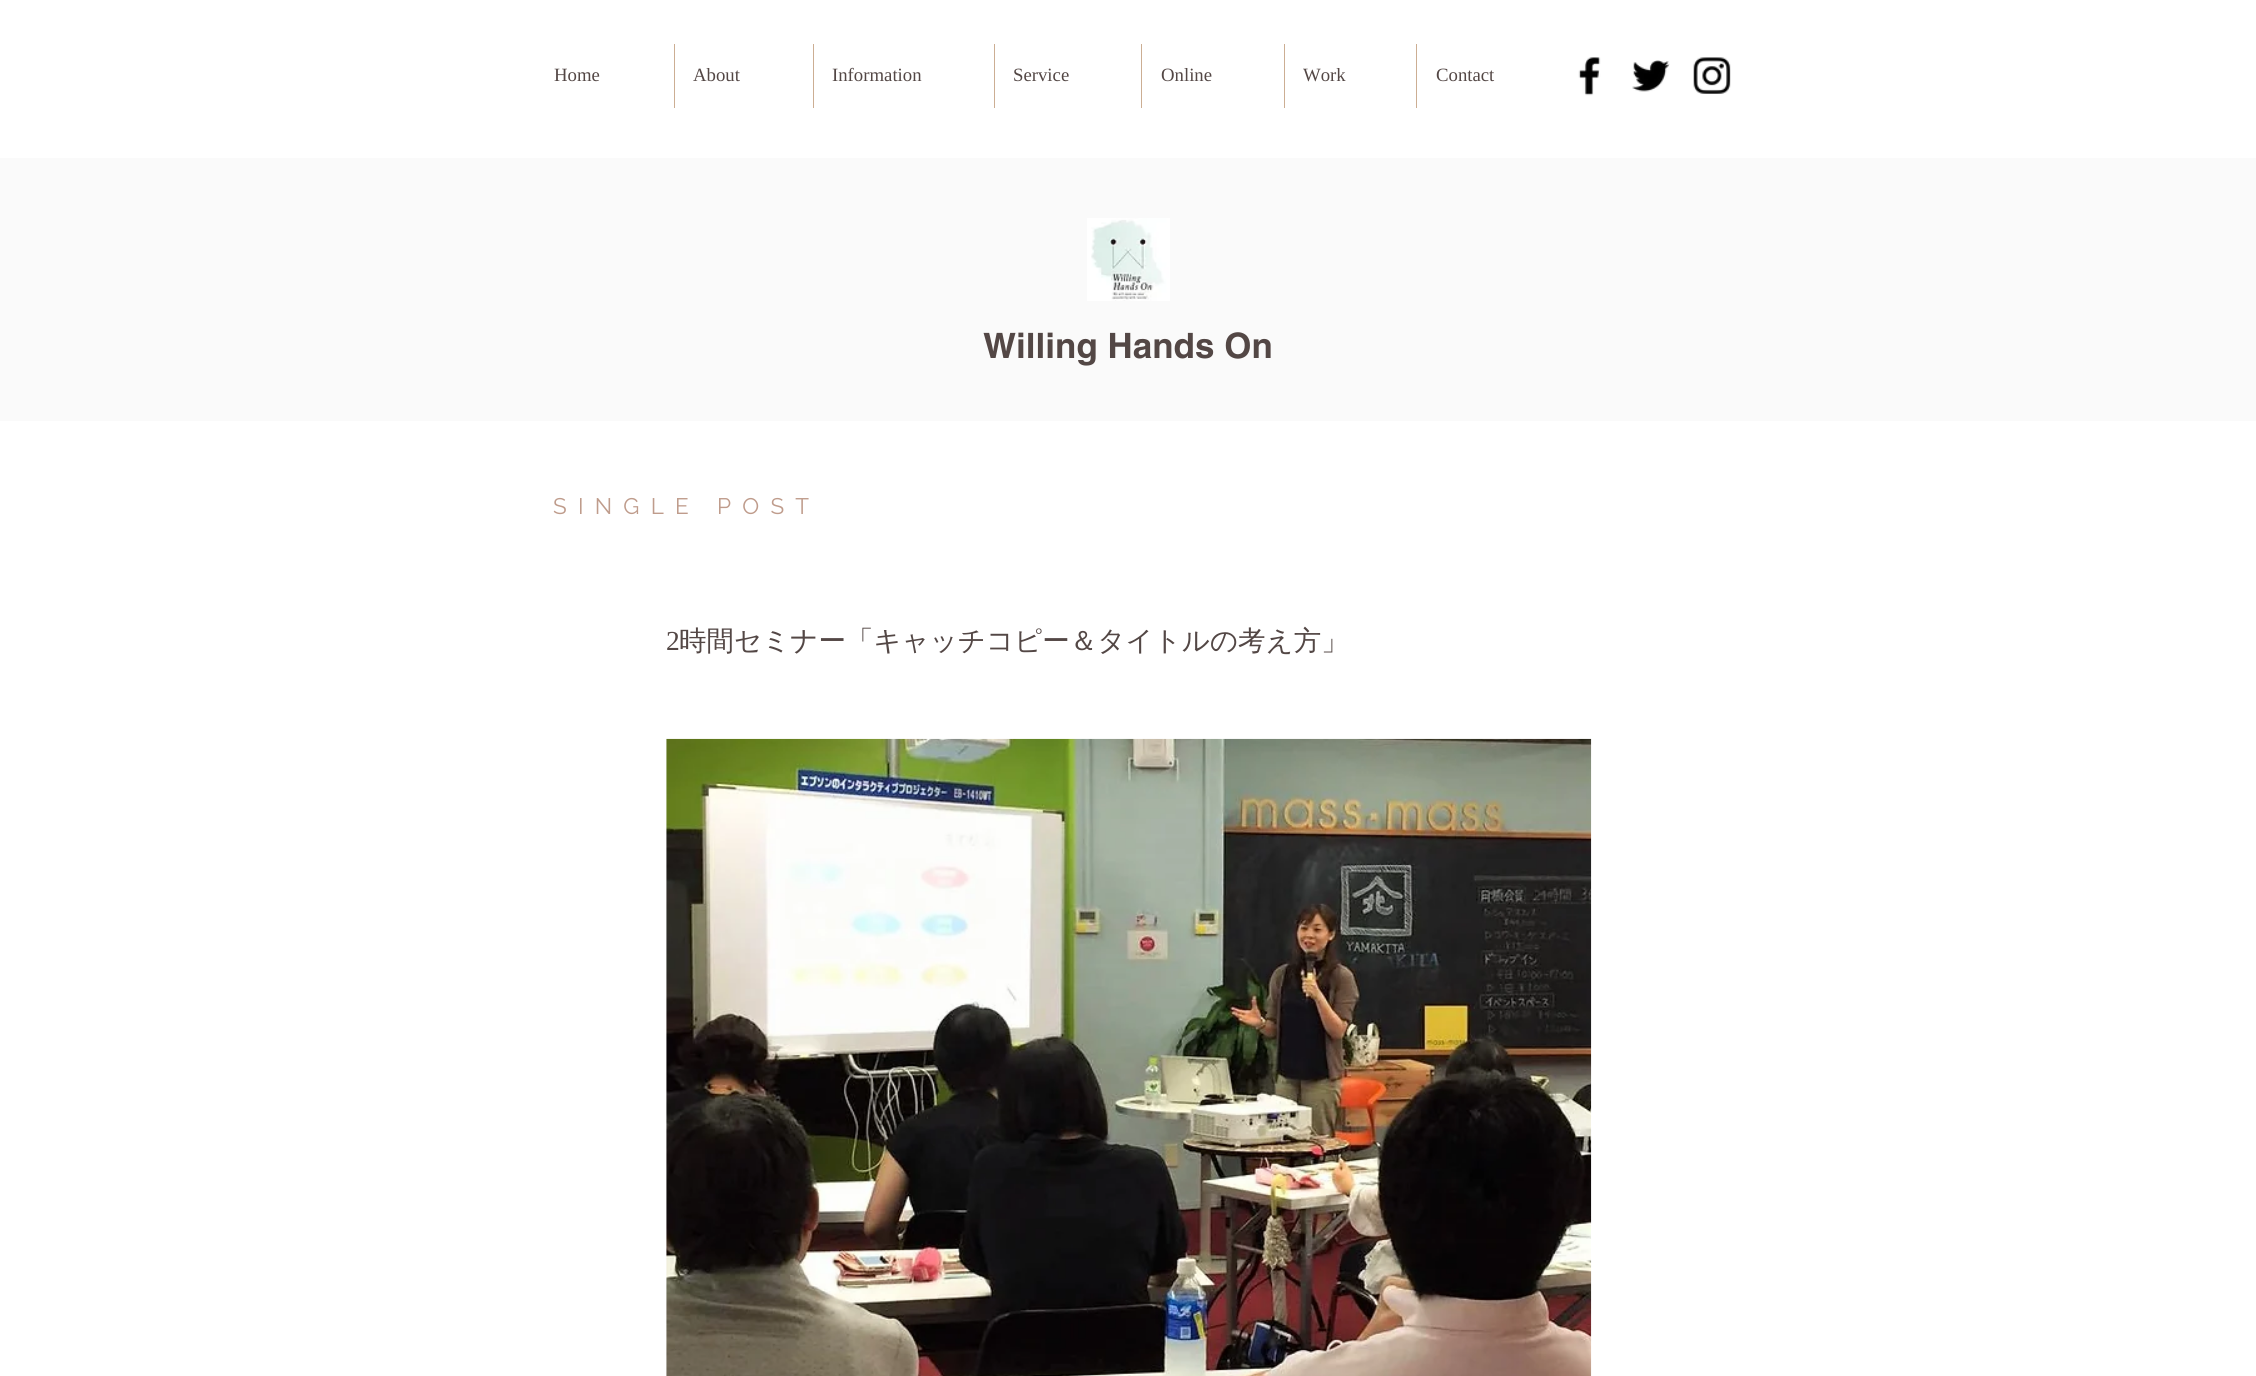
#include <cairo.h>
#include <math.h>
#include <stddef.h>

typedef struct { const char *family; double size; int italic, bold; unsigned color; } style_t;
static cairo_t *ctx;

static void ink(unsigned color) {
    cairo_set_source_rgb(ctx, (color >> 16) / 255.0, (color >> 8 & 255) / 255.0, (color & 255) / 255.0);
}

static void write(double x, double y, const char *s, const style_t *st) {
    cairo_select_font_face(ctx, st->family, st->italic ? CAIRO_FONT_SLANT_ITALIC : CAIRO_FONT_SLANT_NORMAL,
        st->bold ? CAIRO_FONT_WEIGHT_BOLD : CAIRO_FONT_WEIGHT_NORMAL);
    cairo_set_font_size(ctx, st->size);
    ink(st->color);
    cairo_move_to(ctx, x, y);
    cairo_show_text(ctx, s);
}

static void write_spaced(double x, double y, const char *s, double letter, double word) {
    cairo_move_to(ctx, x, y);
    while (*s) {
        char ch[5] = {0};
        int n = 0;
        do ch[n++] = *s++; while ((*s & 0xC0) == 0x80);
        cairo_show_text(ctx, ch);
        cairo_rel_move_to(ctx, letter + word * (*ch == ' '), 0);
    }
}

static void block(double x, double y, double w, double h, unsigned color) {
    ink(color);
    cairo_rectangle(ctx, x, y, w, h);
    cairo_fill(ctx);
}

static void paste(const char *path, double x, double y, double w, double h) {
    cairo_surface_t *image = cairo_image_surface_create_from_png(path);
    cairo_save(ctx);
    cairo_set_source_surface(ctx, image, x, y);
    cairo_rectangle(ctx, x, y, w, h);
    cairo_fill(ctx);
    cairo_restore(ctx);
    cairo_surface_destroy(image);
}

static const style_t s1 = {"Liberation Serif", 18.75, 0, 0, 0x534745};
static const style_t s2 = {"helvetica", 35, 0, 1, 0x534745};
static const style_t s3 = {"Liberation Serif", 27.5, 0, 0, 0x534745};
static const style_t s4 = {"WenQuanYi Zen Hei Medium", 27.5, 0, 0, 0x534745};

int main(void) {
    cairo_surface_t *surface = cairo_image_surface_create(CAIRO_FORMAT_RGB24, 2256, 1376);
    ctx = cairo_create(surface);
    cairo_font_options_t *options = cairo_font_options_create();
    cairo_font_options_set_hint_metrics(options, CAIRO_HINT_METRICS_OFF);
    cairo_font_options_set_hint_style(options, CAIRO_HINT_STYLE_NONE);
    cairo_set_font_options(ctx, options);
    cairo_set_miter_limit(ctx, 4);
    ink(0xffffff);
    cairo_paint(ctx);
    write(554, 81, "Home", &s1);
    block(674, 44, 1, 64, 0xccae93);
    write(693, 81, "About", &s1);
    block(813, 44, 1, 64, 0xccae93);
    write(832, 81, "Information", &s1);
    block(994, 44, 1, 64, 0xccae93);
    write(1013, 81, "Service", &s1);
    block(1141, 44, 1, 64, 0xccae93);
    write(1161, 81, "Online", &s1);
    block(1284, 44, 1, 64, 0xccae93);
    write(1303, 81, "Work", &s1);
    block(1416, 44, 1, 64, 0xccae93);
    write(1436, 81, "Contact", &s1);
    paste("pic1.png", 1578, 57, 23, 39);
    paste("pic2.png", 1632, 60, 38, 32);
    paste("pic3.png", 1693, 57, 38, 37);
    block(0, 158, 2256, 263, 0xfafafa);
    paste("pic4.png", 1087, 218, 83, 83);
    write(983, 358, "Willing Hands On", &s2);
    cairo_select_font_face(ctx, "Raleway", CAIRO_FONT_SLANT_NORMAL, CAIRO_FONT_WEIGHT_NORMAL);
    cairo_set_font_size(ctx, 22.5);
    ink(0xbf9c8c);
    write_spaced(553, 514, "SINGLE POST", 11.25, 0);
    write(666, 650, "2", &s3);
    write(679, 650, "時間セミナー「キャッチコピー＆タイトルの考え方」", &s4);
    paste("pic5.png", 666, 738, 926, 638);
    cairo_surface_write_to_png(surface, "screenshot.png");
    cairo_font_options_destroy(options);
    cairo_destroy(ctx);
    cairo_surface_destroy(surface);
    return 0;
}
